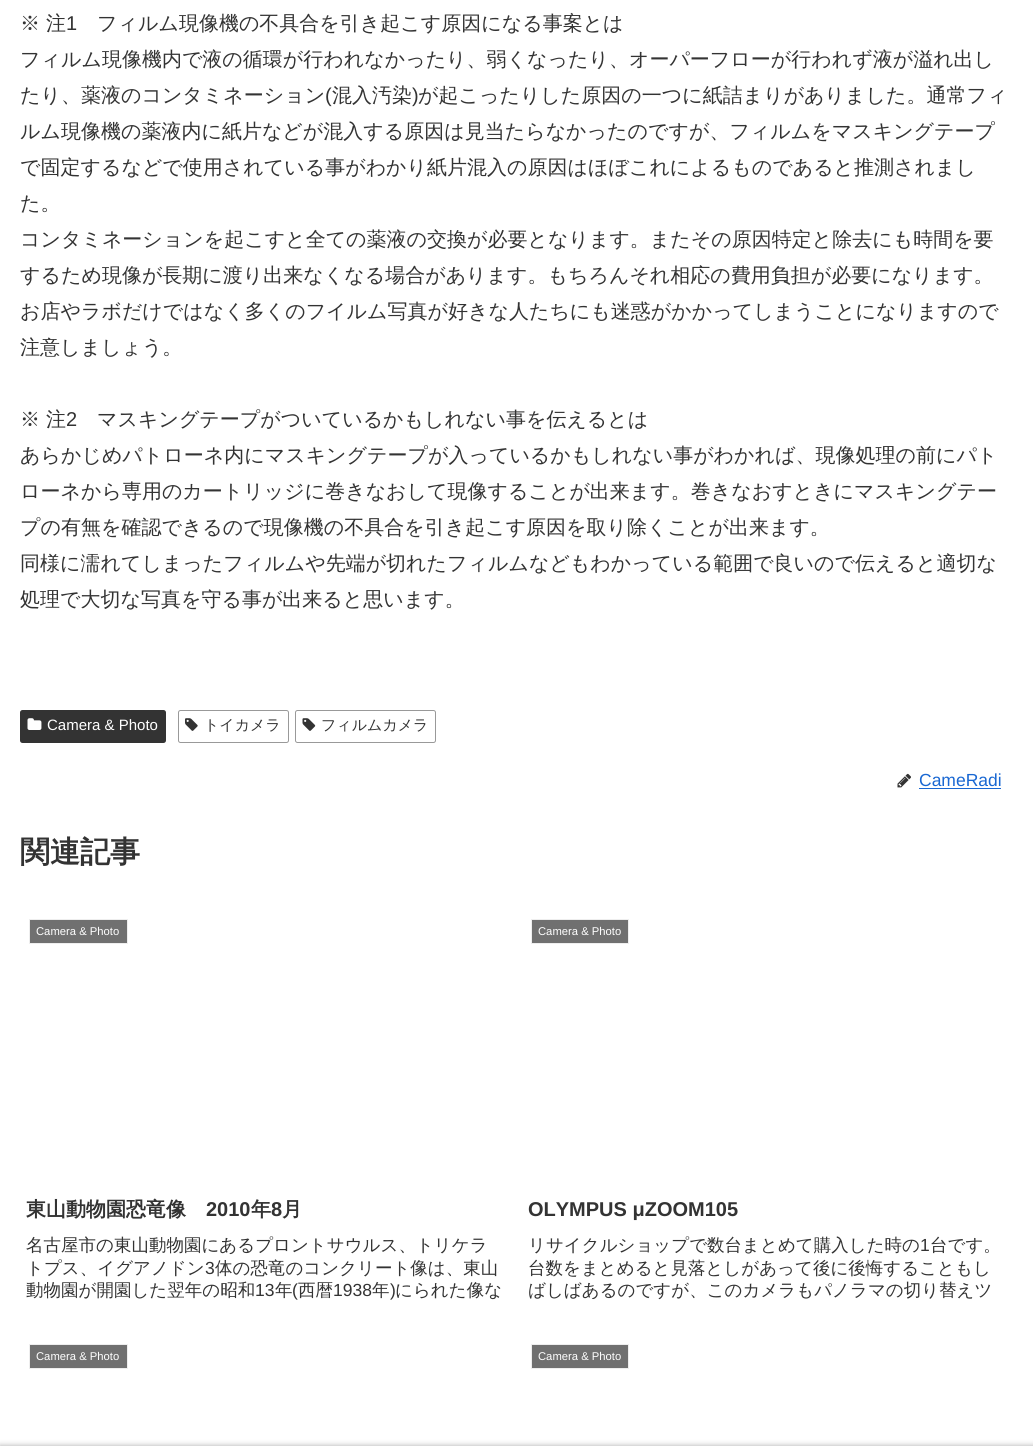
#include <cairo.h>
#include <math.h>
#include <stddef.h>

typedef struct { const char *family; double size; int italic, bold; unsigned color; } style_t;
static cairo_t *ctx;

static void ink(unsigned color) {
    cairo_set_source_rgb(ctx, (color >> 16) / 255.0, (color >> 8 & 255) / 255.0, (color & 255) / 255.0);
}

static void write(double x, double y, const char *s, const style_t *st) {
    cairo_select_font_face(ctx, st->family, st->italic ? CAIRO_FONT_SLANT_ITALIC : CAIRO_FONT_SLANT_NORMAL,
        st->bold ? CAIRO_FONT_WEIGHT_BOLD : CAIRO_FONT_WEIGHT_NORMAL);
    cairo_set_font_size(ctx, st->size);
    ink(st->color);
    cairo_move_to(ctx, x, y);
    cairo_show_text(ctx, s);
}

static void block(double x, double y, double w, double h, unsigned color) {
    ink(color);
    cairo_rectangle(ctx, x, y, w, h);
    cairo_fill(ctx);
}

static void round_path(double x, double y, double w, double h, double r) {
    cairo_new_sub_path(ctx);
    cairo_arc(ctx, x + w - r, y + h - r, r, 0, M_PI / 2);
    cairo_arc(ctx, x + r, y + h - r, r, M_PI / 2, M_PI);
    cairo_arc(ctx, x + r, y + r, r, M_PI, 1.5 * M_PI);
    cairo_arc(ctx, x + w - r, y + r, r, 1.5 * M_PI, 2 * M_PI);
    cairo_close_path(ctx);
}

static void blur_box(double x, double y, double w, double h, double r, double blur, double alpha) {
    cairo_push_group_with_content(ctx, CAIRO_CONTENT_ALPHA);
    cairo_set_operator(ctx, CAIRO_OPERATOR_SOURCE);
    for (int i = 15; i >= -15 && fmin(w, h) + blur * i / 3 > 0; i -= 2) {
        double e = blur * i / 6;
        cairo_set_source_rgba(ctx, 0, 0, 0, alpha * erfc((i - 1) / 8.5) / 2);
        round_path(x - e, y - e, w + 2 * e, h + 2 * e, fmax(0, fmin(r + e + blur * .6, fmin(w, h) / 2 + e)));
        cairo_fill(ctx);
    }
    cairo_pattern_t *soft = cairo_pop_group(ctx);
    cairo_mask(ctx, soft);
    cairo_pattern_destroy(soft);
}

static void paste(const char *path, double x, double y, double w, double h) {
    cairo_surface_t *image = cairo_image_surface_create_from_png(path);
    cairo_save(ctx);
    cairo_set_source_surface(ctx, image, x, y);
    cairo_rectangle(ctx, x, y, w, h);
    cairo_fill(ctx);
    cairo_restore(ctx);
    cairo_surface_destroy(image);
}

static const style_t s1 = {"WenQuanYi Zen Hei Medium", 20, 0, 0, 0x333333};
static const style_t s2 = {"Liberation Sans", 20, 0, 0, 0x333333};
static const style_t s3 = {"Liberation Sans", 15, 0, 0, 0xffffff};
static const style_t s4 = {"WenQuanYi Zen Hei Medium", 15, 0, 0, 0x333333};
static const style_t s5 = {"Liberation Sans", 17.5, 0, 0, 0x1967d2};
static const style_t s6 = {"WenQuanYi Zen Hei", 30, 0, 1, 0x333333};
static const style_t s7 = {"Liberation Sans", 11.25, 0, 0, 0xffffff};
static const style_t s8 = {"WenQuanYi Zen Hei", 20, 0, 1, 0x333333};
static const style_t s9 = {"Liberation Sans", 20, 0, 1, 0x333333};
static const style_t s10 = {"WenQuanYi Zen Hei Medium", 17.5, 0, 0, 0x333333};
static const style_t s11 = {"Liberation Sans", 17.5, 0, 0, 0x333333};

int main(void) {
    cairo_surface_t *surface = cairo_image_surface_create(CAIRO_FORMAT_RGB24, 1033, 1446);
    ctx = cairo_create(surface);
    cairo_font_options_t *options = cairo_font_options_create();
    cairo_font_options_set_hint_metrics(options, CAIRO_HINT_METRICS_OFF);
    cairo_font_options_set_hint_style(options, CAIRO_HINT_STYLE_NONE);
    cairo_set_font_options(ctx, options);
    cairo_set_miter_limit(ctx, 4);
    ink(0xffffff);
    cairo_paint(ctx);
    write(20, 30, "※", &s1);
    write(46, 30, "注", &s1);
    write(66, 30, "1", &s2);
    write(97, 30, "フィルム現像機の不具合を引き起こす原因になる事案とは", &s1);
    write(20, 66, "フィルム現像機内で液の循環が行われなかったり、弱くなったり、オーパーフローが行われず液が溢れ出し", &s1);
    write(20, 102, "たり、薬液のコンタミネーション", &s1);
    write(325, 102, "(", &s2);
    write(332, 102, "混入汚染", &s1);
    write(412, 102, ")", &s2);
    write(418, 102, "が起こったりした原因の一つに紙詰まりがありました。通常フィ", &s1);
    write(20, 138, "ルム現像機の薬液内に紙片などが混入する原因は見当たらなかったのですが、フィルムをマスキングテープ", &s1);
    write(20, 174, "で固定するなどで使用されている事がわかり紙片混入の原因はほぼこれによるものであると推測されまし", &s1);
    write(20, 210, "た。", &s1);
    write(20, 246, "コンタミネーションを起こすと全ての薬液の交換が必要となります。またその原因特定と除去にも時間を要", &s1);
    write(20, 282, "するため現像が長期に渡り出来なくなる場合があります。もちろんそれ相応の費用負担が必要になります。", &s1);
    write(20, 318, "お店やラボだけではなく多くのフイルム写真が好きな人たちにも迷惑がかかってしまうことになりますので", &s1);
    write(20, 354, "注意しましょう。", &s1);
    write(20, 426, "※", &s1);
    write(46, 426, "注", &s1);
    write(66, 426, "2", &s2);
    write(97, 426, "マスキングテープがついているかもしれない事を伝えるとは", &s1);
    write(20, 462, "あらかじめパトローネ内にマスキングテープが入っているかもしれない事がわかれば、現像処理の前にパト", &s1);
    write(20, 498, "ローネから専用のカートリッジに巻きなおして現像することが出来ます。巻きなおすときにマスキングテー", &s1);
    write(20, 534, "プの有無を確認できるので現像機の不具合を引き起こす原因を取り除くことが出来ます。", &s1);
    write(20, 570, "同様に濡れてしまったフィルムや先端が切れたフィルムなどもわかっている範囲で良いので伝えると適切な", &s1);
    write(20, 606, "処理で大切な写真を守る事が出来ると思います。", &s1);
    round_path(20, 710, 146, 33, 2.5);
    cairo_fill(ctx);
    paste("pic1.png", 27, 718, 15, 12);
    write(47, 730, "Camera & Photo", &s3);
    round_path(178.5, 710.5, 110, 32, 2);
    ink(0x999999);
    cairo_set_line_width(ctx, 1);
    cairo_stroke(ctx);
    paste("pic2.png", 185, 718, 13, 13);
    write(204, 730, "トイカメラ", &s4);
    round_path(295.5, 710.5, 140, 32, 2);
    ink(0x999999);
    cairo_stroke(ctx);
    paste("pic3.png", 302, 718, 14, 13);
    write(321, 730, "フィルムカメラ", &s4);
    paste("pic4.png", 897, 773, 14, 15);
    write(919, 786, "CameRadi", &s5);
    block(919, 788, 82, 1, 0x1967d2);
    write(20, 862, "関連記事", &s6);
    ink(0x707070);
    cairo_rectangle(ctx, 29.5, 919.5, 98, 24);
    cairo_fill_preserve(ctx);
    ink(0xeeeeee);
    cairo_stroke(ctx);
    write(36, 935, "Camera & Photo", &s7);
    write(26, 1216, "東山動物園恐竜像", &s8);
    write(206, 1216, "2010", &s9);
    write(251, 1216, "年", &s8);
    write(271, 1216, "8", &s9);
    write(282, 1216, "月", &s8);
    write(26, 1251, "名古屋市の東山動物園にあるプロントサウルス、トリケラ", &s10);
    write(26, 1274, "トプス、イグアノドン", &s10);
    write(205, 1274, "3", &s11);
    write(215, 1274, "体の恐竜のコンクリート像は、東山", &s10);
    write(26, 1296, "動物園が開園した翌年の昭和", &s10);
    write(255, 1296, "13", &s11);
    write(275, 1296, "年", &s10);
    write(292, 1296, "(", &s11);
    write(298, 1296, "西暦", &s10);
    write(333, 1296, "1938", &s11);
    write(372, 1296, "年", &s10);
    write(390, 1296, ")", &s11);
    write(395, 1296, "にられた像な", &s10);
    ink(0x707070);
    cairo_rectangle(ctx, 531.5, 919.5, 97, 24);
    cairo_fill_preserve(ctx);
    ink(0xeeeeee);
    cairo_stroke(ctx);
    write(538, 935, "Camera & Photo", &s7);
    write(528, 1216, "OLYMPUS μZOOM105", &s9);
    write(528, 1251, "リサイクルショップで数台まとめて購入した時の", &s10);
    write(920, 1251, "1", &s11);
    write(930, 1251, "台です。", &s10);
    write(528, 1274, "台数をまとめると見落としがあって後に後悔することもし", &s10);
    write(528, 1296, "ばしばあるのですが、このカメラもパノラマの切り替えツ", &s10);
    ink(0x707070);
    cairo_rectangle(ctx, 29.5, 1344.5, 98, 24);
    cairo_fill_preserve(ctx);
    ink(0xeeeeee);
    cairo_stroke(ctx);
    write(36, 1360, "Camera & Photo", &s7);
    ink(0x707070);
    cairo_rectangle(ctx, 531.5, 1344.5, 97, 24);
    cairo_fill_preserve(ctx);
    ink(0xeeeeee);
    cairo_stroke(ctx);
    write(538, 1360, "Camera & Photo", &s7);
    ink(0xa9a9a9);
    blur_box(0, 1446, 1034, 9, 0, 3, 1);
    cairo_surface_write_to_png(surface, "screenshot.png");
    cairo_font_options_destroy(options);
    cairo_destroy(ctx);
    cairo_surface_destroy(surface);
    return 0;
}
